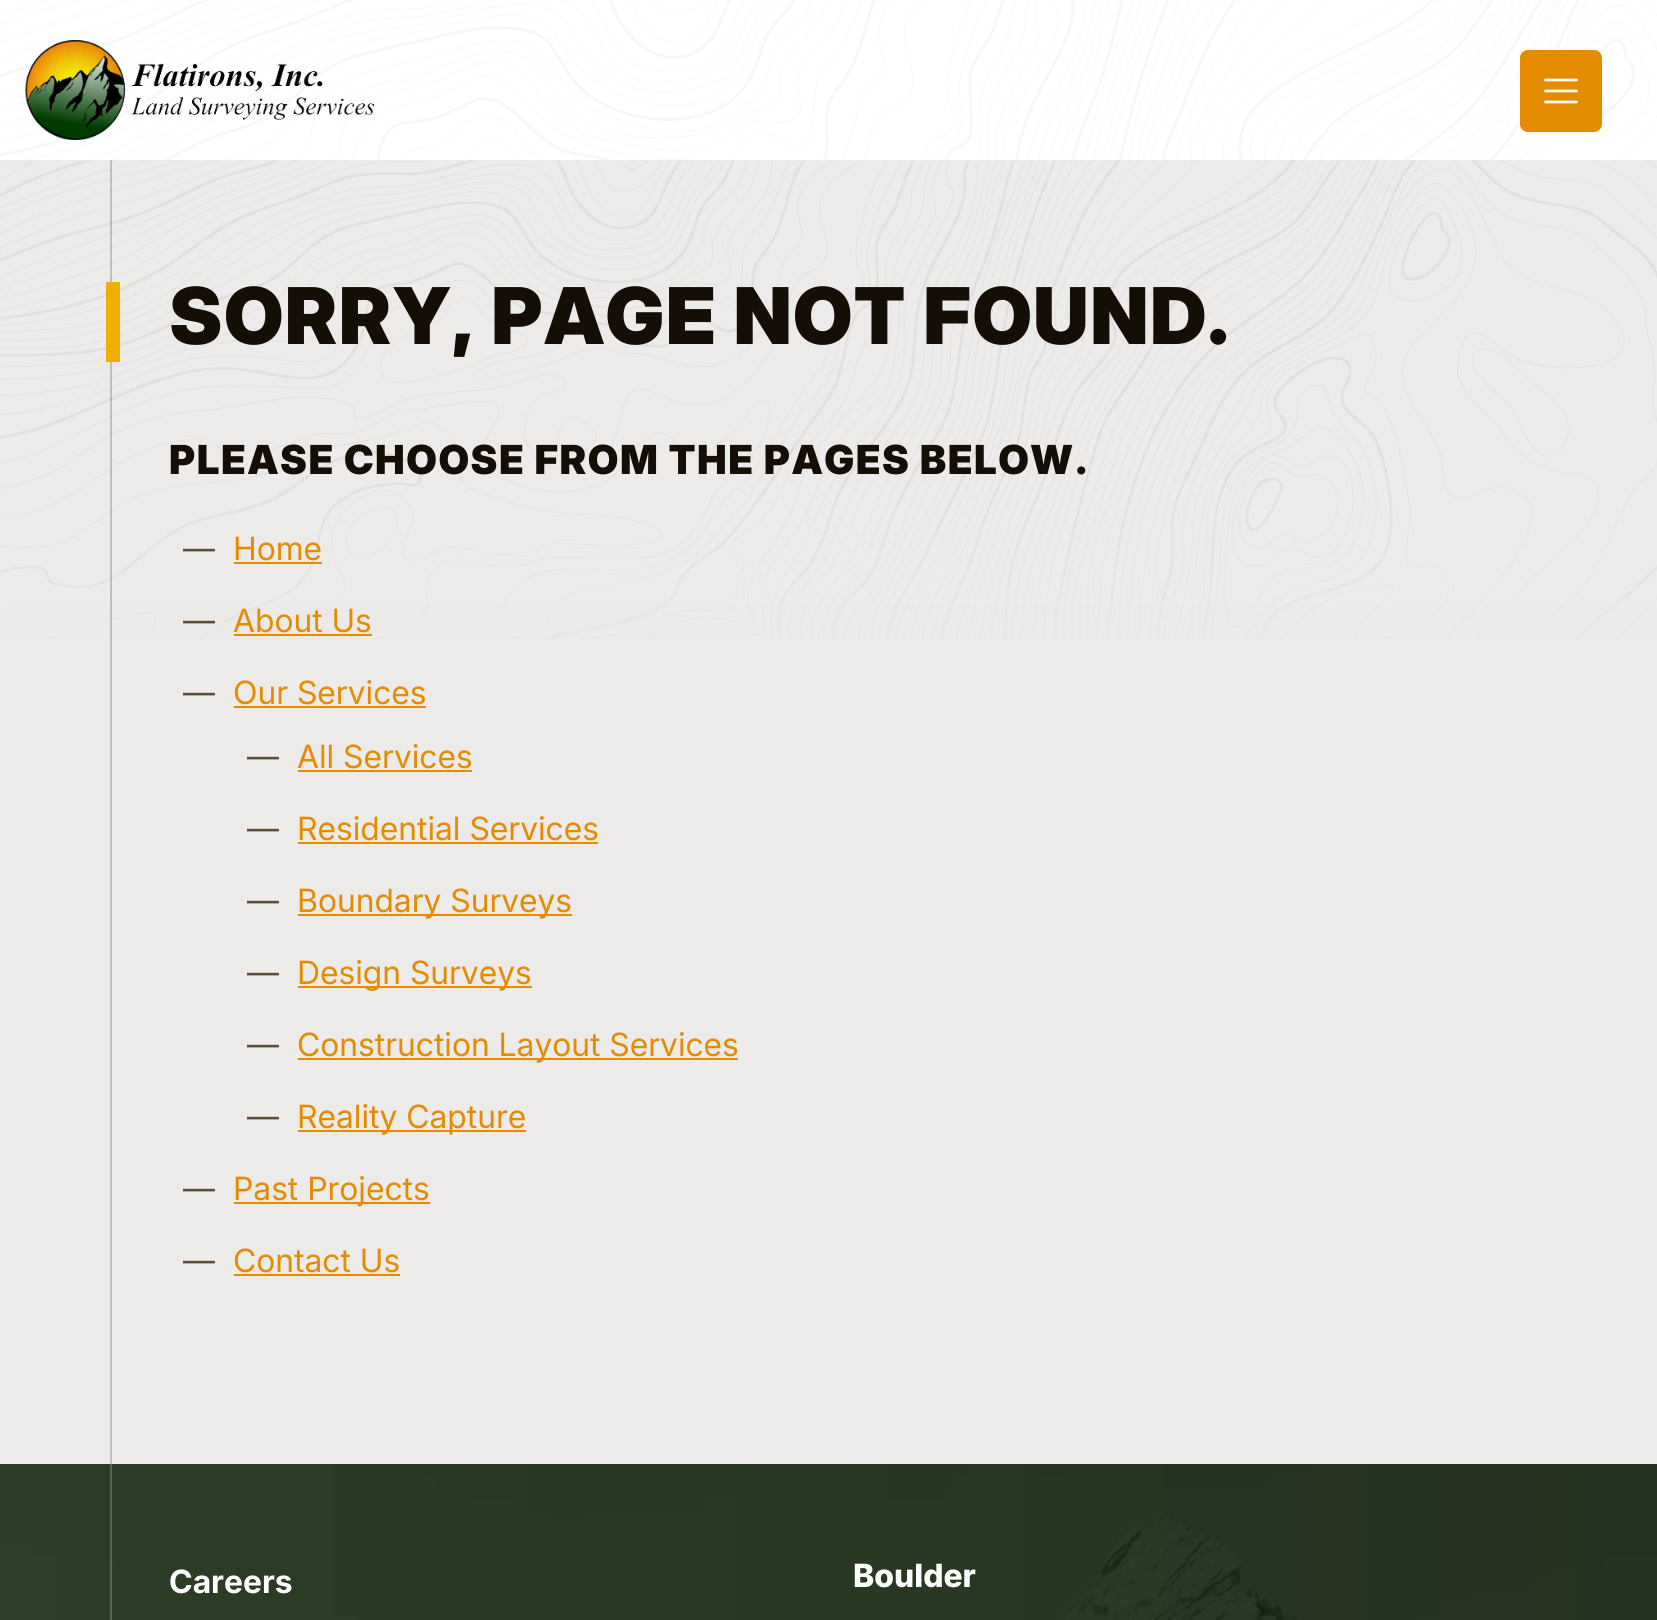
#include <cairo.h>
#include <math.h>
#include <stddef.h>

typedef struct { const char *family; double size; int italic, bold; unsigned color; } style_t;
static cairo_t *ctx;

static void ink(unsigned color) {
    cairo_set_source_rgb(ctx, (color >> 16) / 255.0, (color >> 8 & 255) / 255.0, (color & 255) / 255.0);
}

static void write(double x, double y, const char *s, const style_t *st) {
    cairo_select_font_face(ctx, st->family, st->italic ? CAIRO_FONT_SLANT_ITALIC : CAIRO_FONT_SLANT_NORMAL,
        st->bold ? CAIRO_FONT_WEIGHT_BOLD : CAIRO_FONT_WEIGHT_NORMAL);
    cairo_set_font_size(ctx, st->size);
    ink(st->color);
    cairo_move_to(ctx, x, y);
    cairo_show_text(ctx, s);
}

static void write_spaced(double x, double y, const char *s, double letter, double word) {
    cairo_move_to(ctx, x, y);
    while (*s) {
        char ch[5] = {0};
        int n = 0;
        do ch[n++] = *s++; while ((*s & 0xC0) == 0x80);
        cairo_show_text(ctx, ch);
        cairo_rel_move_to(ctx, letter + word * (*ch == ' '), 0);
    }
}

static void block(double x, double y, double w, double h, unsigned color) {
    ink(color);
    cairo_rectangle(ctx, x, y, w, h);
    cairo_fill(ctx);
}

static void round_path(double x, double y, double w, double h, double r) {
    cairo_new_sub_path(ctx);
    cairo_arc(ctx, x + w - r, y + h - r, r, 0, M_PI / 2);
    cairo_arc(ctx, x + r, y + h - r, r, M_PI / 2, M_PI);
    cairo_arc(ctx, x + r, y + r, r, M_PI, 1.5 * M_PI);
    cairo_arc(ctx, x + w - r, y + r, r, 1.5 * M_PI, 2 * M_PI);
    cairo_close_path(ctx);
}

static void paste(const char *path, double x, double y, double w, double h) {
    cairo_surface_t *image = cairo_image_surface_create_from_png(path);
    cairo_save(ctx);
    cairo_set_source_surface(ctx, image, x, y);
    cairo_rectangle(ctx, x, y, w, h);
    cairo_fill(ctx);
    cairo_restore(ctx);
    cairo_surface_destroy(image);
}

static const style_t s1 = {"Inter", 32, 0, 0, 0x604d33};
static const style_t s2 = {"Inter", 32, 0, 0, 0xe48b00};
static const style_t s3 = {"Inter", 32, 0, 1, 0xffffff};
static const style_t s4 = {"Inter ExtraBold", 32, 0, 0, 0xffffff};

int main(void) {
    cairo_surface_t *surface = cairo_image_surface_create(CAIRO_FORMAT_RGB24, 1657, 1620);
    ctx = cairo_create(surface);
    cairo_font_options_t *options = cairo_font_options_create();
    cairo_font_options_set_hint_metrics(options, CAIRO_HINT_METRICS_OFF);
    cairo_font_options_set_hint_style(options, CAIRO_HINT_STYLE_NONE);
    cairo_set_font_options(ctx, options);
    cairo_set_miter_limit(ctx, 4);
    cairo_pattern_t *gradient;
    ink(0xffffff);
    cairo_paint(ctx);
    paste("pic1.png", 0, 0, 1657, 160);
    paste("pic2.png", 25, 40, 349, 100);
    ink(0xe48b00);
    round_path(1520, 50, 82, 82, 8);
    cairo_fill(ctx);
    cairo_new_path(ctx);
    cairo_move_to(ctx, 1545.5, 80);
    cairo_line_to(ctx, 1576.5, 80);
    cairo_move_to(ctx, 1545.5, 91);
    cairo_line_to(ctx, 1576.5, 91);
    cairo_move_to(ctx, 1545.5, 102);
    cairo_line_to(ctx, 1576.5, 102);
    ink(0xfef9f2);
    cairo_set_line_width(ctx, 2.8);
    cairo_set_line_cap(ctx, CAIRO_LINE_CAP_ROUND);
    cairo_stroke(ctx);
    block(0, 160, 1657, 1304, 0xedebe9);
    paste("pic3.png", 0, 160, 1657, 480);
    cairo_set_source_rgba(ctx, 0.078, 0.055, 0.024, 0.2);
    cairo_rectangle(ctx, 110, 160, 2, 1304);
    cairo_fill(ctx);
    block(106, 282, 14, 80, 0xefae00);
    cairo_select_font_face(ctx, "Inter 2 Black", CAIRO_FONT_SLANT_NORMAL, CAIRO_FONT_WEIGHT_NORMAL);
    cairo_set_font_size(ctx, 78.25);
    ink(0x140e06);
    write_spaced(169, 344, "SORRY, PAGE NOT FOUND.", 2, 0);
    cairo_select_font_face(ctx, "Inter Black", CAIRO_FONT_SLANT_NORMAL, CAIRO_FONT_WEIGHT_NORMAL);
    cairo_set_font_size(ctx, 40);
    write_spaced(169, 474, "PLEASE CHOOSE FROM THE PAGES BELOW.", 1.5, 0);
    write(183, 560, "—", &s1);
    write(233, 560, "Home", &s2);
    block(234, 562, 88, 2, 0xe48b00);
    write(183, 632, "—", &s1);
    write(233, 632, "About Us", &s2);
    block(234, 634, 138, 2, 0xe48b00);
    write(183, 704, "—", &s1);
    write(233, 704, "Our Services", &s2);
    block(234, 706, 192, 2, 0xe48b00);
    write(247, 768, "—", &s1);
    write(297, 768, "All Services", &s2);
    block(298, 770, 174, 2, 0xe48b00);
    write(247, 840, "—", &s1);
    write(297, 840, "Residential Services", &s2);
    block(298, 842, 300, 2, 0xe48b00);
    write(247, 912, "—", &s1);
    block(298, 914, 274, 2, 0xe48b00);
    write(297, 912, "Boundary Surveys", &s2);
    write(247, 984, "—", &s1);
    block(298, 986, 234, 2, 0xe48b00);
    write(297, 984, "Design Surveys", &s2);
    write(247, 1056, "—", &s1);
    block(298, 1058, 440, 2, 0xe48b00);
    write(297, 1056, "Construction Layout Services", &s2);
    write(247, 1128, "—", &s1);
    block(298, 1130, 228, 2, 0xe48b00);
    write(297, 1128, "Reality Capture", &s2);
    write(183, 1200, "—", &s1);
    block(234, 1202, 196, 2, 0xe48b00);
    write(233, 1200, "Past Projects", &s2);
    write(183, 1272, "—", &s1);
    write(233, 1272, "Contact Us", &s2);
    block(234, 1274, 166, 2, 0xe48b00);
    gradient = cairo_pattern_create_linear(0, 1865, 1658, 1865);
    cairo_pattern_add_color_stop_rgba(gradient, 0, 0.102, 0.18, 0.075, 1);
    cairo_pattern_add_color_stop_rgba(gradient, 1, 0.071, 0.133, 0.047, 1);
    cairo_set_source(ctx, gradient);
    cairo_pattern_destroy(gradient);
    cairo_rectangle(ctx, 0, 1464, 1657, 156);
    cairo_fill(ctx);
    paste("pic4.png", 0, 1464, 1657, 156);
    block(110, 1464, 2, 156, 0x556451);
    write(169, 1593, "Careers", &s3);
    write(853, 1587, "Boulder", &s4);
    cairo_surface_write_to_png(surface, "screenshot.png");
    cairo_font_options_destroy(options);
    cairo_destroy(ctx);
    cairo_surface_destroy(surface);
    return 0;
}
